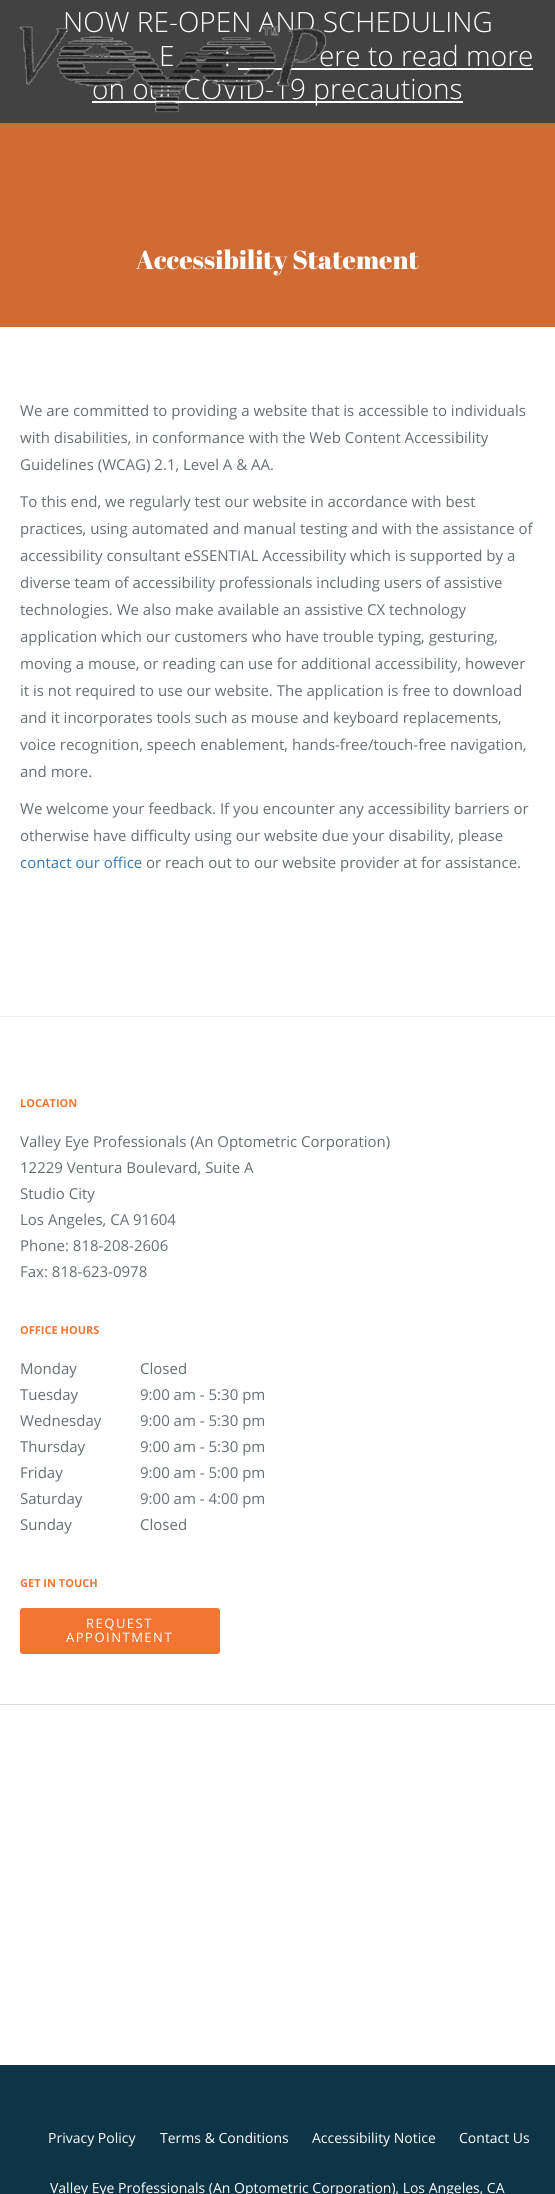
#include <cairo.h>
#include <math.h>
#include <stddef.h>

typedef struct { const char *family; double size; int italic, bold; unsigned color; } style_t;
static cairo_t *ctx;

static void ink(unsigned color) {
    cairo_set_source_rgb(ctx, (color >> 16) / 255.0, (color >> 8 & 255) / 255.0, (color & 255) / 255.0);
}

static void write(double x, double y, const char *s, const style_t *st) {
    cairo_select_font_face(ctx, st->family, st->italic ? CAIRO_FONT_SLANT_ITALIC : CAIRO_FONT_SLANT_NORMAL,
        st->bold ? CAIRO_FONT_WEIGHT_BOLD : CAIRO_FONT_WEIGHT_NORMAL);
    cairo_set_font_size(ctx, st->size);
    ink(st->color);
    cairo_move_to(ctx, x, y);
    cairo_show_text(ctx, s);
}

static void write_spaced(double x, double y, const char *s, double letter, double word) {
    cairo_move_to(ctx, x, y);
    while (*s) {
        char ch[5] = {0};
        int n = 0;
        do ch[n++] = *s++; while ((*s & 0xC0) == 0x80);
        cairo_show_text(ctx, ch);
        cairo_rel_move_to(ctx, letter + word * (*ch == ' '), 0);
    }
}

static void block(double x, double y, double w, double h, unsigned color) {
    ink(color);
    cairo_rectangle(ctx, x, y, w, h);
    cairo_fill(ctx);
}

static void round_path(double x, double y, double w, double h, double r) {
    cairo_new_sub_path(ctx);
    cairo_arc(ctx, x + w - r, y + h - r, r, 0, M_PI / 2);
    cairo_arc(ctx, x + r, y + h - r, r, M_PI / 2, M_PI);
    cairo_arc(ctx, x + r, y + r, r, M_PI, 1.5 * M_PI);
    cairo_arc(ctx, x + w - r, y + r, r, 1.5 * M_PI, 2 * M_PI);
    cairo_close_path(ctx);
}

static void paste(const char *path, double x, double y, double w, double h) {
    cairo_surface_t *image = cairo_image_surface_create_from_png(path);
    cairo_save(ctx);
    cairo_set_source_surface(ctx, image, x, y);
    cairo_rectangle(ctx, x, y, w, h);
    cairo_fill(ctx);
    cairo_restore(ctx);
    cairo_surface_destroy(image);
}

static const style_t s1 = {"Open Sans Light", 28, 0, 0, 0xffffff};
static const style_t s2 = {"Abril Fatface", 26, 0, 0, 0xffffff};
static const style_t s3 = {"Open Sans", 15, 0, 0, 0x656f72};
static const style_t s4 = {"Open Sans", 15, 0, 0, 0x337ab7};
static const style_t s5 = {"Open Sans", 11, 0, 1, 0xf37531};
static const style_t s6 = {"Open Sans", 14, 0, 0, 0xffffff};

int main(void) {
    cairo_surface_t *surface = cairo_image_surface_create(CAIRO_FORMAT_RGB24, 555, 2194);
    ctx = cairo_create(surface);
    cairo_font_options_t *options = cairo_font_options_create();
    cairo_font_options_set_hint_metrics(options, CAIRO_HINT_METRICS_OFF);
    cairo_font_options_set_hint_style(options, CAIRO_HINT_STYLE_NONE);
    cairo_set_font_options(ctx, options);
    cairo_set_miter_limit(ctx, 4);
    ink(0xffffff);
    cairo_paint(ctx);
    block(0, 0, 555, 123, 0x424242);
    write(63, 32, "NOW RE-OPEN AND SCHEDULING", &s1);
    write(159, 66, "E", &s1);
    write(224, 66, ":", &s1);
    write(319, 66, "ere to read more", &s1);
    block(238, 68, 295, 2, 0xffffff);
    block(92, 101, 371, 2, 0xffffff);
    write(92, 99, "on our COVID-19 precautions", &s1);
    paste("pic1.png", 19, 26, 308, 87);
    block(0, 123, 555, 204, 0xd06b34);
    write(136, 269, "Accessibility Statement", &s2);
    write(20, 416, "We are committed to providing a website that is accessible to individuals", &s3);
    write(20, 443, "with disabilities, in conformance with the Web Content Accessibility", &s3);
    write(20, 470, "Guidelines (WCAG) 2.1, Level A & AA.", &s3);
    write(20, 507, "To this end, we regularly test our website in accordance with best", &s3);
    write(20, 534, "practices, using automated and manual testing and with the assistance of", &s3);
    write(20, 561, "accessibility consultant eSSENTIAL Accessibility which is supported by a", &s3);
    write(20, 588, "diverse team of accessibility professionals including users of assistive", &s3);
    write(20, 615, "technologies. We also make available an assistive CX technology", &s3);
    write(20, 642, "application which our customers who have trouble typing, gesturing,", &s3);
    write(20, 669, "moving a mouse, or reading can use for additional accessibility, however", &s3);
    write(20, 696, "it is not required to use our website. The application is free to download", &s3);
    write(20, 723, "and it incorporates tools such as mouse and keyboard replacements,", &s3);
    write(20, 750, "voice recognition, speech enablement, hands-free/touch-free navigation,", &s3);
    write(20, 777, "and more.", &s3);
    write(20, 814, "We welcome your feedback. If you encounter any accessibility barriers or", &s3);
    write(20, 841, "otherwise have difficulty using our website due your disability, please", &s3);
    write(20, 868, "contact our office", &s4);
    write(146, 868, "or reach out to our website provider at for assistance.", &s3);
    block(0, 1016, 555, 1, 0xeeeeee);
    block(0, 1704, 555, 1, 0xdae0e1);
    write(20, 1107, "LOCATION", &s5);
    write(20, 1147, "Valley Eye Professionals (An Optometric Corporation)", &s3);
    write(20, 1173, "12229 Ventura Boulevard, Suite A", &s3);
    write(20, 1199, "Studio City", &s3);
    write(20, 1225, "Los Angeles, CA 91604", &s3);
    write(20, 1251, "Phone: 818-208-2606", &s3);
    write(20, 1277, "Fax: 818-623-0978", &s3);
    write(20, 1334, "OFFICE HOURS", &s5);
    write(20, 1374, "Monday", &s3);
    write(140, 1374, "Closed", &s3);
    write(20, 1400, "Tuesday", &s3);
    write(140, 1400, "9:00 am - 5:30 pm", &s3);
    write(20, 1426, "Wednesday", &s3);
    write(140, 1426, "9:00 am - 5:30 pm", &s3);
    write(20, 1452, "Thursday", &s3);
    write(140, 1452, "9:00 am - 5:30 pm", &s3);
    write(20, 1478, "Friday", &s3);
    write(140, 1478, "9:00 am - 5:00 pm", &s3);
    write(20, 1504, "Saturday", &s3);
    write(140, 1504, "9:00 am - 4:00 pm", &s3);
    write(20, 1530, "Sunday", &s3);
    write(140, 1530, "Closed", &s3);
    write(20, 1587, "GET IN TOUCH", &s5);
    round_path(20, 1608, 200, 46, 3);
    cairo_fill(ctx);
    cairo_select_font_face(ctx, "Open Sans", CAIRO_FONT_SLANT_NORMAL, CAIRO_FONT_WEIGHT_NORMAL);
    cairo_set_font_size(ctx, 13);
    ink(0xffffff);
    write_spaced(86, 1628, "REQUEST", 1.5, 0);
    write_spaced(66, 1642, "APPOINTMENT", 1.5, 0);
    block(0, 2065, 555, 129, 0x0d3545);
    write(48, 2143, "Privacy Policy", &s6);
    write(160, 2143, "Terms & Conditions", &s6);
    write(312, 2143, "Accessibility Notice", &s6);
    write(459, 2143, "Contact Us", &s6);
    write(50, 2193, "Valley Eye Professionals (An Optometric Corporation), Los Angeles, CA", &s6);
    cairo_surface_write_to_png(surface, "screenshot.png");
    cairo_font_options_destroy(options);
    cairo_destroy(ctx);
    cairo_surface_destroy(surface);
    return 0;
}
